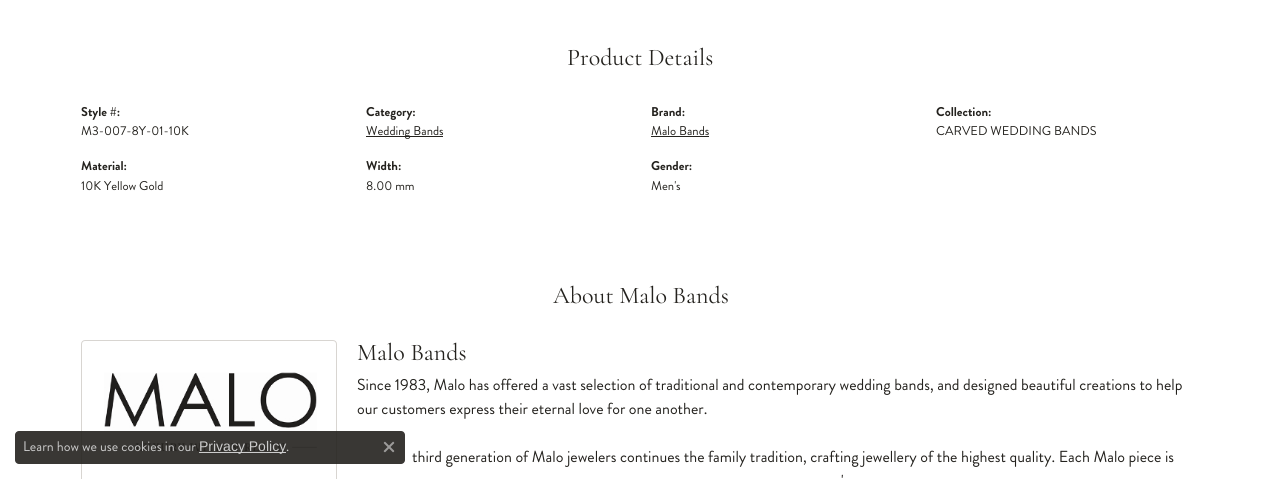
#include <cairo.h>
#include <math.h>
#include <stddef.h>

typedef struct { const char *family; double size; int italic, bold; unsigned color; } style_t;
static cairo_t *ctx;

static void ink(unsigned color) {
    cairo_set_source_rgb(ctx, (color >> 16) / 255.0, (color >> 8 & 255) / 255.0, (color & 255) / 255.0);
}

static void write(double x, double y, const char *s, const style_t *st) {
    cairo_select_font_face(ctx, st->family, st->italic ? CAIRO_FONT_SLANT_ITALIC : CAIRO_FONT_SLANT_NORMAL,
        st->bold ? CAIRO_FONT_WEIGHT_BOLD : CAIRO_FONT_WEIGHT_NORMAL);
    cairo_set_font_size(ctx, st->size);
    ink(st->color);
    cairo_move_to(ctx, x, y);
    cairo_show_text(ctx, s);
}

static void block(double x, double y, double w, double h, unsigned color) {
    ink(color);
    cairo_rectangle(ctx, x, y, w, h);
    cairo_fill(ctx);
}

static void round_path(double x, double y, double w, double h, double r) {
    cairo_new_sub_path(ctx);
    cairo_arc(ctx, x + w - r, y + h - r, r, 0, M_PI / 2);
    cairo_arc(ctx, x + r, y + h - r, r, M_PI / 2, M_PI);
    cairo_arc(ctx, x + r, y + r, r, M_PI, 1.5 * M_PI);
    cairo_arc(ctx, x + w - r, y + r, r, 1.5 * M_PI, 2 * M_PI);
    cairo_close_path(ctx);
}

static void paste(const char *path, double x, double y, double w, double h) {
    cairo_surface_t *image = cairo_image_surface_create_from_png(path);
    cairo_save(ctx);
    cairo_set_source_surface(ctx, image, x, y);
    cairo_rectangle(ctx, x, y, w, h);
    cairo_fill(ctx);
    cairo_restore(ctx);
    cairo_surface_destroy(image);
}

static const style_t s1 = {"Cormorant Garamond", 24, 0, 0, 0x24221e};
static const style_t s2 = {"Brandon Grotesque", 12.75, 0, 1, 0x24221e};
static const style_t s3 = {"Brandon Grotesque", 12.75, 0, 0, 0x24221e};
static const style_t s4 = {"Brandon Grotesque", 16, 0, 0, 0x24221e};
static const style_t s5 = {"Brandon Grotesque", 14, 0, 0, 0xcccccc};
static const style_t s6 = {"Liberation Sans", 14, 0, 0, 0xcccccc};

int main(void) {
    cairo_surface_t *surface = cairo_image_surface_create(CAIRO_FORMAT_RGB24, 1281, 479);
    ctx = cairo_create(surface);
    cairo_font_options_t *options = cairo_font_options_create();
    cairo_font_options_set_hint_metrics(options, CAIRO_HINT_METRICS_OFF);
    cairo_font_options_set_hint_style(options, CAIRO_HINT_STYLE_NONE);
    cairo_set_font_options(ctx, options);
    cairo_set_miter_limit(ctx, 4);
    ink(0xffffff);
    cairo_paint(ctx);
    write(567, 65, "Product Details", &s1);
    write(81, 116, "Style #:", &s2);
    write(81, 135, "M3-007-8Y-01-10K", &s3);
    write(81, 170, "Material:", &s2);
    write(81, 190, "10K Yellow Gold", &s3);
    write(366, 116, "Category:", &s2);
    block(366, 136, 77, 1, 0x24221e);
    write(366, 135, "Wedding Bands", &s3);
    write(366, 170, "Width:", &s2);
    write(366, 190, "8.00 mm", &s3);
    write(651, 116, "Brand:", &s2);
    write(651, 135, "Malo Bands", &s3);
    block(651, 136, 58, 1, 0x24221e);
    write(651, 170, "Gender:", &s2);
    write(651, 190, "Men's", &s3);
    write(936, 116, "Collection:", &s2);
    write(936, 135, "CARVED WEDDING BANDS", &s3);
    write(553, 303, "About Malo Bands", &s1);
    round_path(81.5, 340.5, 255, 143, 3.5);
    ink(0xd8d5d1);
    cairo_set_line_width(ctx, 1);
    cairo_stroke(ctx);
    paste("pic1.png", 104, 372, 213, 80);
    write(357, 360, "Malo Bands", &s1);
    write(357, 390, "Since 1983, Malo has offered a vast selection of traditional and contemporary wedding bands, and designed beautiful creations to help", &s4);
    write(357, 414, "our customers express their eternal love for one another.", &s4);
    write(412, 462, "third generation of Malo jewelers continues the family tradition, crafting jewellery of the highest quality. Each Malo piece is", &s4);
    write(841, 486, "'", &s4);
    cairo_set_source_rgba(ctx, 0.141, 0.133, 0.118, 0.9);
    round_path(15, 431, 390, 33, 4);
    cairo_fill(ctx);
    write(23, 451, "Learn how we use cookies in our", &s5);
    block(199, 452, 87, 1, 0xcccccc);
    write(199, 451, "Privacy Policy", &s6);
    write(286, 451, ".", &s5);
    paste("pic2.png", 383, 441, 12, 12);
    cairo_surface_write_to_png(surface, "screenshot.png");
    cairo_font_options_destroy(options);
    cairo_destroy(ctx);
    cairo_surface_destroy(surface);
    return 0;
}
